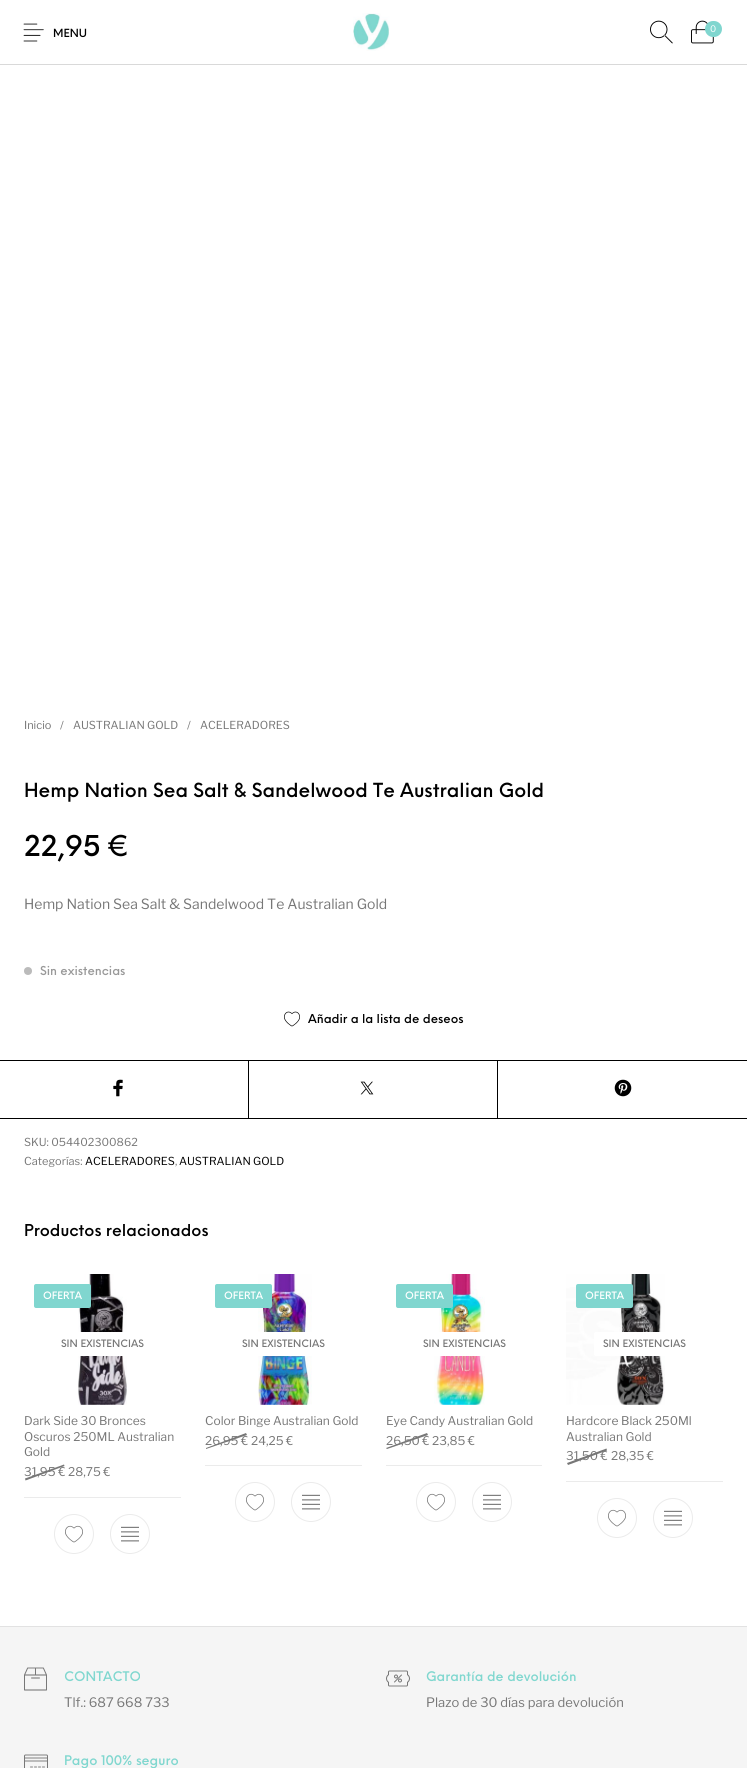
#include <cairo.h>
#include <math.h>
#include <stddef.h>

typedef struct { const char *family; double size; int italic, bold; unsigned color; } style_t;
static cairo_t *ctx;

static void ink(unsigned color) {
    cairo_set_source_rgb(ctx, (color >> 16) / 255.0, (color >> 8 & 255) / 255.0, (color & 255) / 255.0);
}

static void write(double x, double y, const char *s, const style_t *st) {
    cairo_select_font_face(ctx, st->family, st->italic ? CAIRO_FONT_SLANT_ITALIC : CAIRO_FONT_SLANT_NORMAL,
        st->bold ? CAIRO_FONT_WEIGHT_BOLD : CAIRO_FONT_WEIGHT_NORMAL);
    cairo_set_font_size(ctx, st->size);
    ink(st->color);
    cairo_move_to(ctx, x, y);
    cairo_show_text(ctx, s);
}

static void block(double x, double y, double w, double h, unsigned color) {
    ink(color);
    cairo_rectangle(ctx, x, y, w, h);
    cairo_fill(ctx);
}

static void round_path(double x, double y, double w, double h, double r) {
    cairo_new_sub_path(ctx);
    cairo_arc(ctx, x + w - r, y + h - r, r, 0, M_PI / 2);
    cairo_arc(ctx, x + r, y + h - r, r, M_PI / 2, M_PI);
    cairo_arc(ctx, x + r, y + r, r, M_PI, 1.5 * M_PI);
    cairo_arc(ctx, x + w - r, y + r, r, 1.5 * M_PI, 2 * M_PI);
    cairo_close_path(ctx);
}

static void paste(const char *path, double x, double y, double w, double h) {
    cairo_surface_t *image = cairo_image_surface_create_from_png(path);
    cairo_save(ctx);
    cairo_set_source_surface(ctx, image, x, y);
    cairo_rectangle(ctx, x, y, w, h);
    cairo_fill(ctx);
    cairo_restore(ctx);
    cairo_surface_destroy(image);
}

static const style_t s1 = {"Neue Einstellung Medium", 11, 0, 0, 0x000000};
static const style_t s2 = {"Libre Franklin", 9, 0, 0, 0xffffff};
static const style_t s3 = {"Libre Franklin", 11, 0, 0, 0x777777};
static const style_t s4 = {"Neue Einstellung Medium", 19, 0, 0, 0x000000};
static const style_t s5 = {"Neue Einstellung Medium", 28, 0, 0, 0x000000};
static const style_t s6 = {"Libre Franklin", 14, 0, 0, 0x777777};
static const style_t s7 = {"Neue Einstellung Medium", 12, 0, 0, 0x999999};
static const style_t s8 = {"Neue Einstellung Medium", 12, 0, 0, 0x000000};
static const style_t s9 = {"Libre Franklin", 11, 0, 0, 0x000000};
static const style_t s10 = {"Neue Einstellung Medium", 16, 0, 0, 0x000000};
static const style_t s11 = {"Neue Einstellung Medium", 10, 0, 0, 0xffffff};
static const style_t s12 = {"Neue Einstellung Medium", 10, 0, 0, 0x777777};
static const style_t s13 = {"Libre Franklin", 12, 0, 0, 0x777777};
static const style_t s14 = {"Neue Einstellung Medium", 13, 0, 0, 0x80d7cf};
static const style_t s15 = {"Libre Franklin", 13, 0, 0, 0x777777};

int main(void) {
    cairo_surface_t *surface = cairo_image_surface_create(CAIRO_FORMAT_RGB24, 747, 1768);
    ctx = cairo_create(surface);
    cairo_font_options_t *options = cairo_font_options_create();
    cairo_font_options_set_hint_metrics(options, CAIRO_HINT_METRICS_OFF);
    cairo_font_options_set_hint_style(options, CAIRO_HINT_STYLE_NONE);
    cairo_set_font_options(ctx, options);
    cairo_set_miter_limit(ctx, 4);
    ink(0xffffff);
    cairo_paint(ctx);
    block(0, 64, 747, 1, 0xd9d9d9);
    paste("pic1.png", 23, 23, 21, 19);
    write(53, 37, "MENU", &s1);
    paste("pic2.png", 353, 13, 37, 38);
    paste("pic3.png", 650, 20, 23, 24);
    paste("pic4.png", 691, 20, 23, 24);
    ink(0x80d6cf);
    round_path(705, 21, 17, 16, 8);
    cairo_fill(ctx);
    write(710, 32, "0", &s2);
    write(24, 729, "Inicio", &s3);
    write(60, 729, "/", &s3);
    write(73, 729, "AUSTRALIAN GOLD", &s3);
    write(187, 729, "/", &s3);
    write(200, 729, "ACELERADORES", &s3);
    write(24, 797, "Hemp Nation Sea Salt & Sandelwood Te Australian Gold", &s4);
    write(24, 856, "22,95 €", &s5);
    write(24, 909, "Hemp Nation Sea Salt & Sandelwood Te Australian Gold", &s6);
    ink(0xbbbbbb);
    cairo_new_path(ctx);
    cairo_arc(ctx, 28, 971, 4, 0, 2 * M_PI);
    cairo_fill(ctx);
    write(40, 975, "Sin existencias", &s7);
    paste("pic5.png", 284, 1011, 16, 16);
    write(308, 1023, "Añadir a la lista de deseos", &s8);
    block(0, 1060, 747, 1, 0x000000);
    block(248, 1060, 1, 59, 0x000000);
    block(0, 1118, 249, 1, 0x000000);
    paste("pic6.png", 113, 1079, 10, 18);
    block(497, 1060, 1, 59, 0x000000);
    block(249, 1118, 498, 1, 0x000000);
    paste("pic7.png", 360, 1081, 14, 14);
    paste("pic8.png", 614, 1079, 18, 18);
    write(24, 1146, "SKU: 054402300862", &s3);
    write(24, 1165, "Categorías:", &s3);
    write(85, 1165, "ACELERADORES", &s9);
    write(175, 1165, ",", &s3);
    write(179, 1165, "AUSTRALIAN GOLD", &s9);
    write(24, 1236, "Productos relacionados", &s10);
    paste("pic9.png", 78, 1274, 49, 131);
    ink(0x80d6cf);
    round_path(34, 1284, 57, 24, 2);
    cairo_fill(ctx);
    write(43, 1299, "OFERTA", &s11);
    round_path(52, 1332, 101, 24, 2);
    cairo_fill(ctx);
    write(61, 1347, "SIN EXISTENCIAS", &s12);
    block(24, 1497, 157, 1, 0xebebeb);
    write(24, 1425, "Dark Side 30 Bronces", &s13);
    write(24, 1441, "Oscuros 250ML Australian", &s13);
    write(24, 1456, "Gold", &s13);
    cairo_new_path(ctx);
    cairo_move_to(ctx, 25, 1478.5);
    cairo_line_to(ctx, 64, 1464.5);
    cairo_line_to(ctx, 64.5, 1466);
    cairo_line_to(ctx, 25.5, 1480.5);
    cairo_close_path(ctx);
    cairo_fill(ctx);
    write(24, 1476, "31,95 €", &s13);
    write(68, 1476, "28,75 €", &s13);
    cairo_new_path(ctx);
    cairo_arc(ctx, 74, 1534, 19.5, 0, 2 * M_PI);
    ink(0xebebeb);
    cairo_set_line_width(ctx, 1);
    cairo_stroke(ctx);
    paste("pic10.png", 65, 1525, 18, 18);
    cairo_arc(ctx, 130, 1534, 19.5, 0, 2 * M_PI);
    cairo_stroke(ctx);
    paste("pic11.png", 121, 1526, 18, 16);
    paste("pic12.png", 258, 1274, 54, 131);
    ink(0x80d6cf);
    round_path(215, 1284, 57, 24, 2);
    cairo_fill(ctx);
    write(224, 1299, "OFERTA", &s11);
    round_path(233, 1332, 101, 24, 2);
    cairo_fill(ctx);
    write(242, 1347, "SIN EXISTENCIAS", &s12);
    block(205, 1465, 157, 1, 0xebebeb);
    write(205, 1425, "Color Binge Australian Gold", &s13);
    cairo_new_path(ctx);
    cairo_move_to(ctx, 206, 1448);
    cairo_line_to(ctx, 246, 1433);
    cairo_line_to(ctx, 247, 1435);
    cairo_line_to(ctx, 206, 1449);
    cairo_close_path(ctx);
    cairo_fill(ctx);
    write(205, 1445, "26,95 €", &s13);
    write(251, 1445, "24,25 €", &s13);
    cairo_new_path(ctx);
    cairo_arc(ctx, 255, 1502, 19.5, 0, 2 * M_PI);
    ink(0xebebeb);
    cairo_stroke(ctx);
    paste("pic10.png", 246, 1493, 18, 18);
    cairo_arc(ctx, 311, 1502, 19.5, 0, 2 * M_PI);
    cairo_stroke(ctx);
    paste("pic11.png", 302, 1494, 18, 16);
    paste("pic13.png", 434, 1274, 51, 131);
    ink(0x80d6cf);
    round_path(396, 1284, 57, 24, 2);
    cairo_fill(ctx);
    write(405, 1299, "OFERTA", &s11);
    round_path(414, 1332, 100, 24, 2);
    cairo_fill(ctx);
    write(423, 1347, "SIN EXISTENCIAS", &s12);
    block(386, 1465, 156, 1, 0xebebeb);
    write(386, 1425, "Eye Candy Australian Gold", &s13);
    cairo_new_path(ctx);
    cairo_move_to(ctx, 386, 1448);
    cairo_line_to(ctx, 427, 1433);
    cairo_line_to(ctx, 428, 1435);
    cairo_line_to(ctx, 387, 1449);
    cairo_close_path(ctx);
    cairo_fill(ctx);
    write(386, 1445, "26,50 €", &s13);
    write(432, 1445, "23,85 €", &s13);
    cairo_new_path(ctx);
    cairo_arc(ctx, 436, 1502, 19.5, 0, 2 * M_PI);
    ink(0xebebeb);
    cairo_stroke(ctx);
    paste("pic10.png", 427, 1493, 18, 18);
    cairo_arc(ctx, 492, 1502, 19.5, 0, 2 * M_PI);
    cairo_stroke(ctx);
    paste("pic11.png", 483, 1494, 18, 16);
    paste("pic14.png", 566, 1274, 99, 131);
    ink(0x80d6cf);
    round_path(576, 1284, 57, 24, 2);
    cairo_fill(ctx);
    write(585, 1299, "OFERTA", &s11);
    round_path(594, 1332, 101, 24, 2);
    cairo_fill(ctx);
    write(603, 1347, "SIN EXISTENCIAS", &s12);
    block(566, 1481, 157, 1, 0xebebeb);
    write(566, 1425, "Hardcore Black 250Ml", &s13);
    write(566, 1441, "Australian Gold", &s13);
    cairo_new_path(ctx);
    cairo_move_to(ctx, 567, 1463);
    cairo_line_to(ctx, 606.5, 1448.5);
    cairo_line_to(ctx, 607, 1450.5);
    cairo_line_to(ctx, 568, 1465);
    cairo_close_path(ctx);
    cairo_fill(ctx);
    write(566, 1460, "31,50 €", &s13);
    write(611, 1460, "28,35 €", &s13);
    cairo_new_path(ctx);
    cairo_arc(ctx, 617, 1518, 19.5, 0, 2 * M_PI);
    ink(0xebebeb);
    cairo_stroke(ctx);
    paste("pic10.png", 608, 1509, 18, 18);
    cairo_arc(ctx, 673, 1518, 19.5, 0, 2 * M_PI);
    cairo_stroke(ctx);
    paste("pic11.png", 664, 1510, 18, 16);
    block(0, 1627, 747, 141, 0xf5f5f5);
    block(0, 1626, 747, 1, 0xe2e2e2);
    paste("pic15.png", 24, 1667, 23, 24);
    write(64, 1681, "CONTACTO", &s14);
    write(64, 1707, "Tlf.: 687 668 733", &s15);
    paste("pic16.png", 386, 1670, 24, 17);
    write(426, 1681, "Garantía de devolución", &s14);
    write(426, 1707, "Plazo de 30 días para devolución", &s15);
    paste("pic17.png", 24, 1754, 24, 14);
    write(64, 1765, "Pago 100% seguro", &s14);
    cairo_surface_write_to_png(surface, "screenshot.png");
    cairo_font_options_destroy(options);
    cairo_destroy(ctx);
    cairo_surface_destroy(surface);
    return 0;
}
